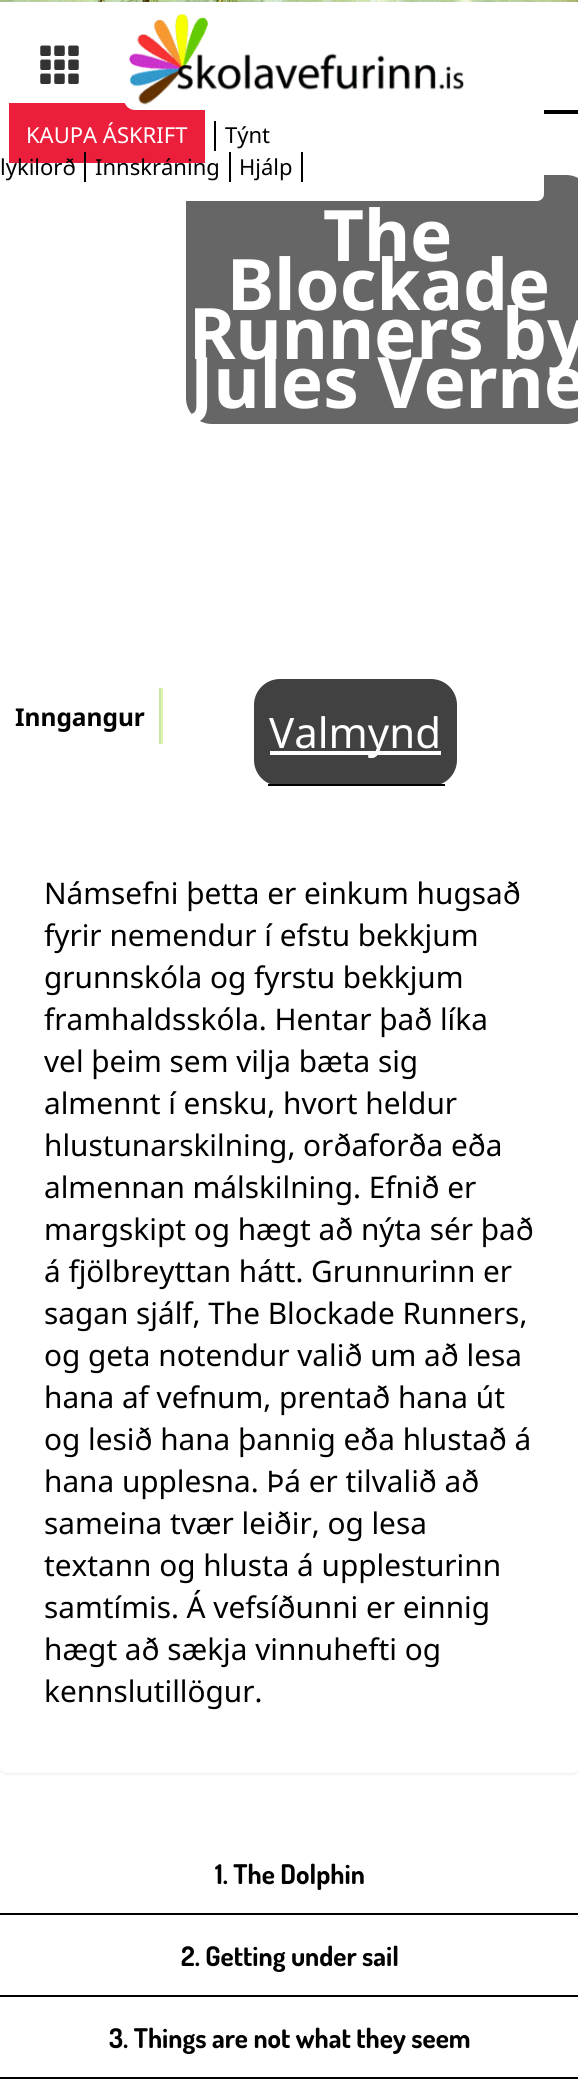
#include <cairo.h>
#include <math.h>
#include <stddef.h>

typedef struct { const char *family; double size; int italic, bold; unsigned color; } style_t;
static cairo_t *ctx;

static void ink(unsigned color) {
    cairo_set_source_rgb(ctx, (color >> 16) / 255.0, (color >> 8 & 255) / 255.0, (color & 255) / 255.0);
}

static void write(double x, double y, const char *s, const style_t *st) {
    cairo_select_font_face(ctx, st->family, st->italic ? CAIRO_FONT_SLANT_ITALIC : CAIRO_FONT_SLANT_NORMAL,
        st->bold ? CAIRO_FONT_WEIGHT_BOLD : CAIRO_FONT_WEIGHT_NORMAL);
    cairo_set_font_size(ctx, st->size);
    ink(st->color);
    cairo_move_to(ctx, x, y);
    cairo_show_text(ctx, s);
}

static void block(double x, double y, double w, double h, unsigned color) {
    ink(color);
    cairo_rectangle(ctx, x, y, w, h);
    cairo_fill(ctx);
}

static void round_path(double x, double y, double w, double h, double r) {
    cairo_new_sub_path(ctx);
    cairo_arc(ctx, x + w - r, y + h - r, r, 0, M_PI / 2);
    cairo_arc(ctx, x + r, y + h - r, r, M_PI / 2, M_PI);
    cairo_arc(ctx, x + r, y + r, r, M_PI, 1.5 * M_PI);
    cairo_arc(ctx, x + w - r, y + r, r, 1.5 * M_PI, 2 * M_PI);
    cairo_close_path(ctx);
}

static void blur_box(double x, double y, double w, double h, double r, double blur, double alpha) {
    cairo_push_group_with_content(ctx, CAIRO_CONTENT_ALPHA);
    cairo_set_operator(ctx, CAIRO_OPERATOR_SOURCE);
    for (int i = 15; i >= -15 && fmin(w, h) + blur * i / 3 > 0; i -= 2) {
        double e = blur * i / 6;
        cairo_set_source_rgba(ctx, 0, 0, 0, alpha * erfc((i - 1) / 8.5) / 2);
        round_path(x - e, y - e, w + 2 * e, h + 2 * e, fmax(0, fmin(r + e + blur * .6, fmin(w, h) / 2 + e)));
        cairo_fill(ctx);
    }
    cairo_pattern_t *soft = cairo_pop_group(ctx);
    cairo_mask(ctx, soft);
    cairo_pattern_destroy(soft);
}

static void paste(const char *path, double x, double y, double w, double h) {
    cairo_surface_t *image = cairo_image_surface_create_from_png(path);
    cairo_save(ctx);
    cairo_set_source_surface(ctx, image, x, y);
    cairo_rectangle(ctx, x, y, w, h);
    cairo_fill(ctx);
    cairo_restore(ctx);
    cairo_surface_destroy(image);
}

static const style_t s1 = {"Noto Sans", 22, 0, 0, 0xffffff};
static const style_t s2 = {"Noto Sans", 22, 0, 0, 0x000000};
static const style_t s3 = {"Noto Sans", 71, 0, 1, 0xffffff};
static const style_t s4 = {"Noto Sans", 24.5, 0, 1, 0x000000};
static const style_t s5 = {"Noto Sans", 42, 0, 0, 0xffffff};
static const style_t s6 = {"Noto Sans", 29.75, 0, 0, 0x000000};
static const style_t s7 = {"Dosis", 27.1, 0, 1, 0x000000};

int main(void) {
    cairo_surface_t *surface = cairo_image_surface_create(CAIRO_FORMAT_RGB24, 578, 2081);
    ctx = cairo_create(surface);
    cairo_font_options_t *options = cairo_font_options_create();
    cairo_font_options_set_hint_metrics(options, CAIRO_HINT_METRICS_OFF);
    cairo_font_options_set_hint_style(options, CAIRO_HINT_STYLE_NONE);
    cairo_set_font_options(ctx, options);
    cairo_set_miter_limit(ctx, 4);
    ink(0xffffff);
    cairo_paint(ctx);
    paste("pic1.png", 0, 0, 578, 2);
    block(544, 110, 34, 4, 0x000000);
    paste("pic2.png", 40, 45, 39, 39);
    ink(0x000000);
    blur_box(0, 229, 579, 1546, 7, 1, 0.05);
    ink(0xffffff);
    round_path(0, 228, 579, 1545, 7);
    cairo_fill(ctx);
    ink(0x666666);
    round_path(186, 175, 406, 249, 26);
    cairo_fill(ctx);
    ink(0xffffff);
    round_path(0, 103, 544, 98, 7);
    cairo_fill(ctx);
    block(9, 103, 196, 60, 0xeb1e3b);
    ink(0xffffff);
    round_path(124, 11, 350, 99, 11);
    cairo_fill(ctx);
    paste("pic3.png", 128, 14, 336, 91);
    write(26, 143, "KAUPA ÁSKRIFT", &s1);
    block(214, 121, 2, 30, 0x000000);
    write(225, 143, "Týnt", &s2);
    write(0, 175, "lykilorð", &s2);
    block(84, 152, 2, 30, 0x000000);
    write(95, 175, "Innskráning", &s2);
    block(229, 152, 2, 30, 0x000000);
    write(239, 175, "Hjálp", &s2);
    block(301, 152, 2, 30, 0x000000);
    write(323, 261, "The", &s3);
    write(227, 310, "Blockade", &s3);
    write(189, 359, "Runners by", &s3);
    write(190, 408, "Jules Verne", &s3);
    block(161, 688, 2, 56, 0xdef6af);
    block(159, 688, 2, 56, 0xcee5a3);
    write(15, 726, "Inngangur", &s4);
    ink(0x414141);
    round_path(254, 679, 203, 107, 26);
    cairo_fill(ctx);
    block(268, 784, 177, 2, 0x000000);
    block(270, 751, 171, 4, 0xffffff);
    write(269, 748, "Valmynd", &s5);
    write(44, 904, "Námsefni þetta er einkum hugsað", &s6);
    write(44, 946, "fyrir nemendur í efstu bekkjum", &s6);
    write(44, 988, "grunnskóla og fyrstu bekkjum", &s6);
    write(44, 1030, "framhaldsskóla. Hentar það líka", &s6);
    write(44, 1072, "vel þeim sem vilja bæta sig", &s6);
    write(44, 1114, "almennt í ensku, hvort heldur", &s6);
    write(44, 1156, "hlustunarskilning, orðaforða eða", &s6);
    write(44, 1198, "almennan málskilning. Efnið er", &s6);
    write(44, 1240, "margskipt og hægt að nýta sér það", &s6);
    write(44, 1282, "á fjölbreyttan hátt. Grunnurinn er", &s6);
    write(44, 1324, "sagan sjálf, The Blockade Runners,", &s6);
    write(44, 1366, "og geta notendur valið um að lesa", &s6);
    write(44, 1408, "hana af vefnum, prentað hana út", &s6);
    write(44, 1450, "og lesið hana þannig eða hlustað á", &s6);
    write(44, 1492, "hana upplesna. Þá er tilvalið að", &s6);
    write(44, 1534, "sameina tvær leiðir, og lesa", &s6);
    write(44, 1576, "textann og hlusta á upplesturinn", &s6);
    write(44, 1618, "samtímis. Á vefsíðunni er einnig", &s6);
    write(44, 1660, "hægt að sækja vinnuhefti og", &s6);
    write(44, 1702, "kennslutillögur.", &s6);
    block(0, 1913, 578, 2, 0x000000);
    write(215, 1884, "1. The Dolphin", &s7);
    block(0, 1995, 578, 2, 0x000000);
    write(181, 1966, "2. Getting under sail", &s7);
    block(0, 2077, 578, 2, 0x000000);
    write(109, 2048, "3. Things are not what they seem", &s7);
    cairo_surface_write_to_png(surface, "screenshot.png");
    cairo_font_options_destroy(options);
    cairo_destroy(ctx);
    cairo_surface_destroy(surface);
    return 0;
}
